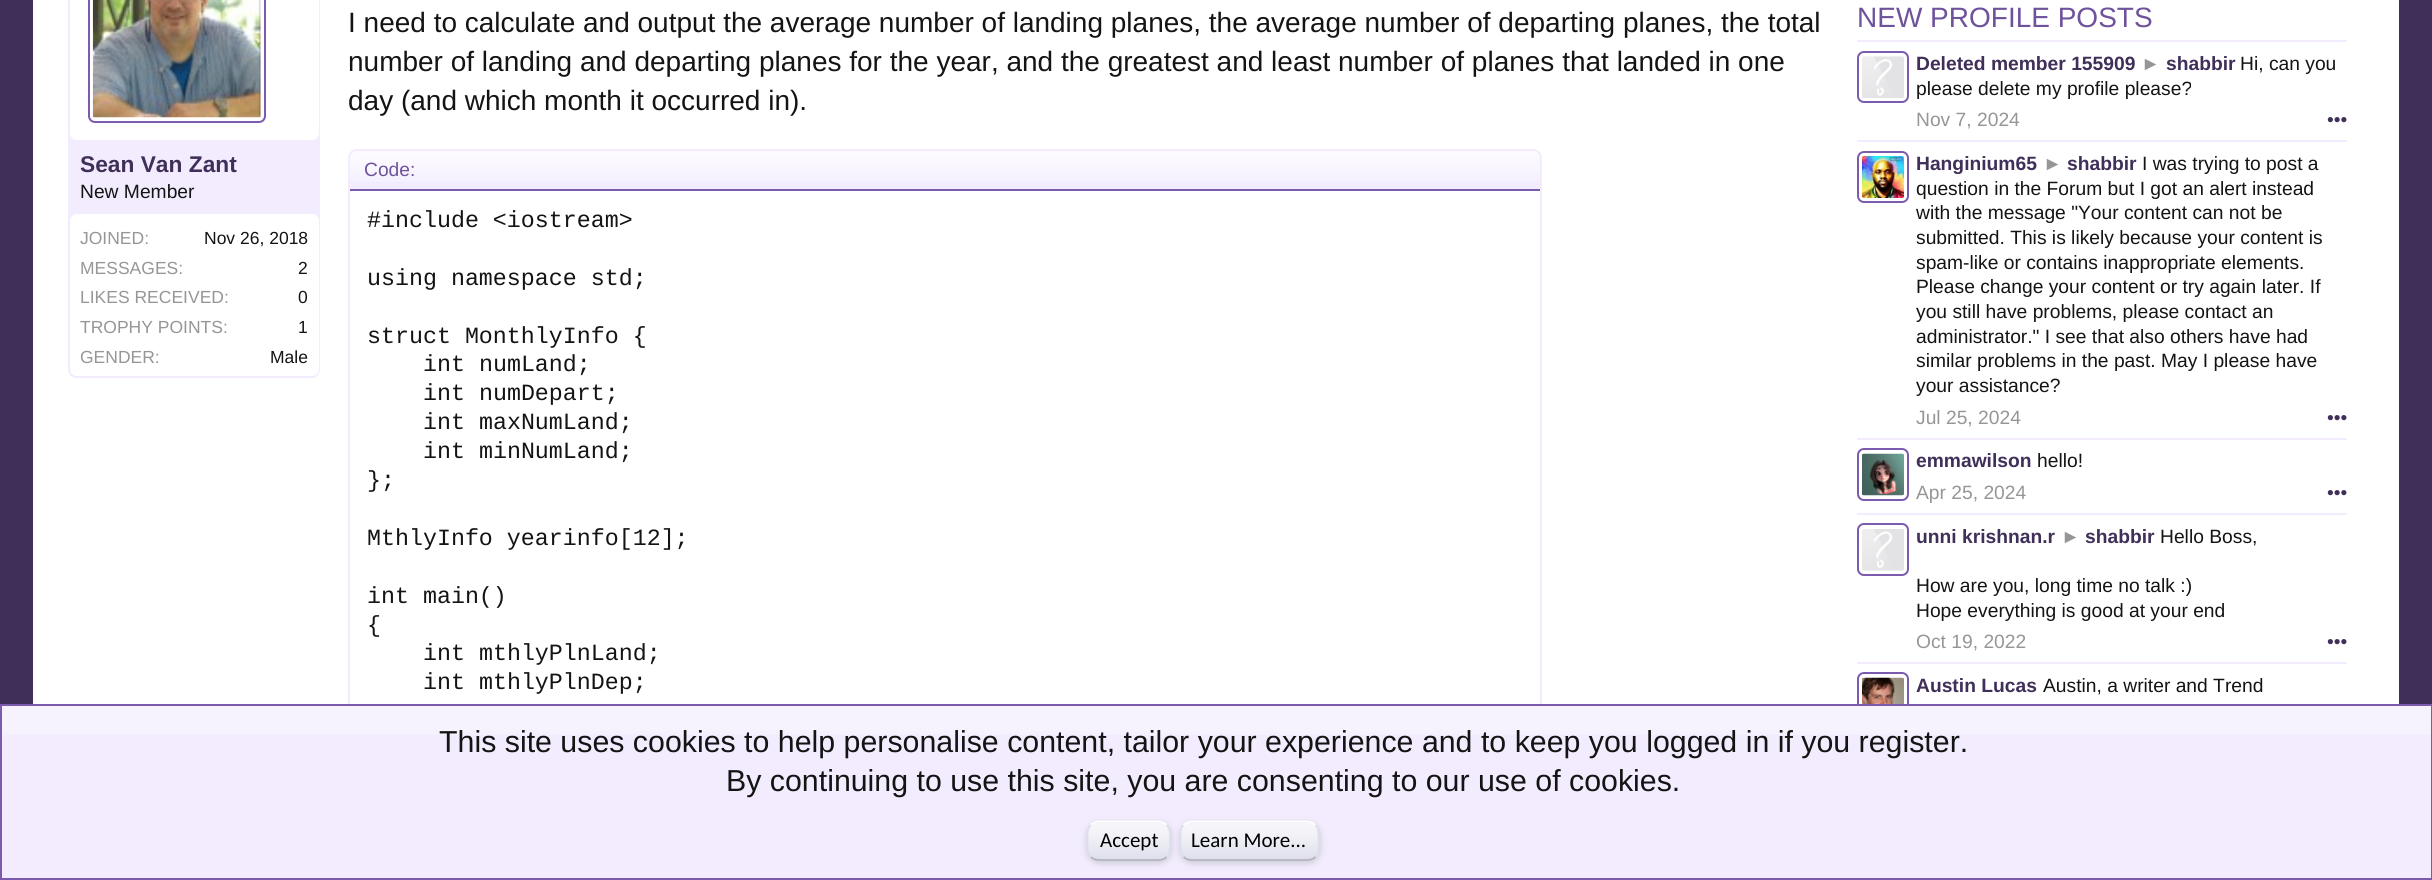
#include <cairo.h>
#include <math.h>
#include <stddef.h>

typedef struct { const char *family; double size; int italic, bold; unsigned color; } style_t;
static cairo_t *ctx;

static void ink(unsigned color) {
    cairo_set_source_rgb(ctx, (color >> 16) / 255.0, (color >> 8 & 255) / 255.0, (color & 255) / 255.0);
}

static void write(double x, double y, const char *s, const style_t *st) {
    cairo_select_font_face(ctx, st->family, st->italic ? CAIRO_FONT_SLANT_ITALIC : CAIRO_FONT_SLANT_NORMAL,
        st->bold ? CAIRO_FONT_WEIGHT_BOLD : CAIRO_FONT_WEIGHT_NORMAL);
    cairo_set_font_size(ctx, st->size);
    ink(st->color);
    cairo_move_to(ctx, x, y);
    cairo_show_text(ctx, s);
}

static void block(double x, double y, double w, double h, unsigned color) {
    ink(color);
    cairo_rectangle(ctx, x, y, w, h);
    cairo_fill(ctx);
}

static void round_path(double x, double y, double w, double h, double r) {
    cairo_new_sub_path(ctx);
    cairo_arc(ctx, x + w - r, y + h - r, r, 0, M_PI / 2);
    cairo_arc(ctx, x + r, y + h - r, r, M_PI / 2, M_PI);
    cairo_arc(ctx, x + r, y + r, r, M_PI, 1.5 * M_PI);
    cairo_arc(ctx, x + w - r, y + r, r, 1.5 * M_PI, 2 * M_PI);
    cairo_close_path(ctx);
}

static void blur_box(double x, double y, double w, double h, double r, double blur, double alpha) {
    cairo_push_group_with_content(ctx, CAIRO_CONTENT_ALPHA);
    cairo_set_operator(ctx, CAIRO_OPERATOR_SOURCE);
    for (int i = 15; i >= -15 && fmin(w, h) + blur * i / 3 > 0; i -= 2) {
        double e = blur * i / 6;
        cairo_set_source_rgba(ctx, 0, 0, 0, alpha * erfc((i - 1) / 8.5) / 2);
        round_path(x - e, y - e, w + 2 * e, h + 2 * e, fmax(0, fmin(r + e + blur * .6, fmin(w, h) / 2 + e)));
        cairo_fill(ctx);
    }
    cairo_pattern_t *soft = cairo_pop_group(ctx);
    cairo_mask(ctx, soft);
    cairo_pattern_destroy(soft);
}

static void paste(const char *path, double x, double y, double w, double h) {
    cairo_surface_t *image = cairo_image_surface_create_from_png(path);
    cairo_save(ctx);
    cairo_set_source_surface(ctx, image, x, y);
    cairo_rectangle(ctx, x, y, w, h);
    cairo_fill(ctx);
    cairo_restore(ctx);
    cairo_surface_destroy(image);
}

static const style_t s1 = {"Liberation Sans", 22.75, 0, 1, 0x3f2f59};
static const style_t s2 = {"Liberation Sans", 19.25, 0, 0, 0x141414};
static const style_t s3 = {"Liberation Sans", 17.5, 0, 0, 0x969696};
static const style_t s4 = {"Liberation Sans", 17.5, 0, 0, 0x141414};
static const style_t s5 = {"Liberation Sans", 28, 0, 0, 0x141414};
static const style_t s6 = {"Liberation Sans", 19.25, 0, 0, 0x6f529c};
static const style_t s7 = {"Liberation Mono", 23.3, 0, 0, 0x141414};
static const style_t s8 = {"Liberation Sans", 28, 0, 0, 0x6f529c};
static const style_t s9 = {"Liberation Sans", 19.25, 0, 1, 0x3f2f59};
static const style_t s10 = {"Liberation Sans", 19.25, 0, 1, 0x969696};
static const style_t s11 = {"Liberation Sans", 19.25, 0, 0, 0x969696};
static const style_t s12 = {"Liberation Sans", 19.25, 0, 0, 0x3f2f59};
static const style_t s13 = {"Liberation Sans", 30.33, 0, 0, 0x141414};
static const style_t s14 = {"Carlito", 21, 0, 0, 0x000000};

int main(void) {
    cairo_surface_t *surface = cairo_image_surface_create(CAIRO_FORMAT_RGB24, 2432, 880);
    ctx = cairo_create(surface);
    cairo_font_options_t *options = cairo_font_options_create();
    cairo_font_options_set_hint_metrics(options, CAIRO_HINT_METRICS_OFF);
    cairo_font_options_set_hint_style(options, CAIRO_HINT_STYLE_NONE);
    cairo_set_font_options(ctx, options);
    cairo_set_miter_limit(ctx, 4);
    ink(0x3f2f59);
    cairo_paint(ctx);
    block(33, 0, 2366, 704, 0xffffff);
    ink(0xf3ecfe);
    round_path(68, -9, 252, 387, 9);
    cairo_fill(ctx);
    paste("pic1.png", 69, 372, 250, 4);
    round_path(69, -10, 250, 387, 8);
    cairo_stroke(ctx);
    ink(0xffffff);
    round_path(70, -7, 249, 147, 7);
    cairo_fill(ctx);
    round_path(89, -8, 176, 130, 6);
    ink(0x7c5baf);
    cairo_stroke(ctx);
    paste("pic2.png", 92, 0, 169, 118);
    write(80, 172, "Sean Van Zant", &s1);
    write(80, 198, "New Member", &s2);
    ink(0xffffff);
    round_path(70, 214, 249, 162, 7);
    cairo_fill(ctx);
    write(80, 244, "JOINED:", &s3);
    write(204, 244, "Nov 26, 2018", &s4);
    write(80, 274, "MESSAGES:", &s3);
    write(298, 274, "2", &s4);
    write(80, 303, "LIKES RECEIVED:", &s3);
    write(298, 303, "0", &s4);
    write(80, 333, "TROPHY POINTS:", &s3);
    write(298, 333, "1", &s4);
    write(80, 363, "GENDER:", &s3);
    write(270, 363, "Male", &s4);
    write(348, 32, "I need to calculate and output the average number of landing planes, the average number of departing planes, the total", &s5);
    write(348, 71, "number of landing and departing planes for the year, and the greatest and least number of planes that landed in one", &s5);
    write(348, 110, "day (and which month it occurred in).", &s5);
    round_path(349, 150, 1192, 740, 8);
    ink(0xf3ecfe);
    cairo_stroke(ctx);
    cairo_new_path(ctx);
    cairo_move_to(ctx, 357, 151);
    cairo_line_to(ctx, 1533, 151);
    cairo_curve_to(ctx, 1537, 151, 1540, 154, 1540, 158);
    cairo_line_to(ctx, 1540, 191);
    cairo_line_to(ctx, 350, 191);
    cairo_line_to(ctx, 350, 158);
    cairo_curve_to(ctx, 350, 154, 353, 151, 357, 151);
    cairo_close_path(ctx);
    cairo_fill(ctx);
    paste("pic3.png", 350, 151, 1190, 31);
    block(350, 189, 1190, 2, 0x7c5baf);
    write(364, 176, "Code:", &s6);
    write(367, 227, "#include <iostream>", &s7);
    write(367, 285, "using namespace std;", &s7);
    write(367, 343, "struct MonthlyInfo {", &s7);
    write(423, 371, "int numLand;", &s7);
    write(423, 400, "int numDepart;", &s7);
    write(423, 429, "int maxNumLand;", &s7);
    write(423, 458, "int minNumLand;", &s7);
    write(367, 487, "};", &s7);
    write(367, 545, "MthlyInfo yearinfo[12];", &s7);
    write(367, 603, "int main()", &s7);
    write(367, 632, "{", &s7);
    write(423, 660, "int mthlyPlnLand;", &s7);
    write(423, 689, "int mthlyPlnDep;", &s7);
    block(1857, 40, 490, 2, 0xf3ecfe);
    write(1857, 27, "NEW PROFILE POSTS", &s8);
    round_path(1858, 52, 50, 50, 6);
    ink(0x7c5baf);
    cairo_stroke(ctx);
    paste("pic4.png", 1862, 56, 42, 42);
    write(1916, 70, "Deleted member 155909", &s9);
    write(2141, 70, "►", &s10);
    write(2166, 70, "shabbir", &s9);
    write(2240, 70, "Hi, can you", &s2);
    write(1916, 95, "please delete my profile please?", &s2);
    write(1916, 126, "Nov 7, 2024", &s11);
    write(2327, 126, "•••", &s12);
    block(1857, 140, 490, 2, 0xf3ecfe);
    round_path(1858, 152, 50, 50, 6);
    ink(0x7c5baf);
    cairo_stroke(ctx);
    paste("pic5.png", 1862, 156, 42, 42);
    write(1916, 170, "Hanginium65", &s9);
    write(2043, 170, "►", &s10);
    write(2067, 170, "shabbir", &s9);
    write(2142, 170, "I was trying to post a", &s2);
    write(1916, 195, "question in the Forum but I got an alert instead", &s2);
    write(1916, 219, "with the message \"Your content can not be", &s2);
    write(1916, 244, "submitted. This is likely because your content is", &s2);
    write(1916, 269, "spam-like or contains inappropriate elements.", &s2);
    write(1916, 293, "Please change your content or try again later. If", &s2);
    write(1916, 318, "you still have problems, please contact an", &s2);
    write(1916, 343, "administrator.\" I see that also others have had", &s2);
    write(1916, 367, "similar problems in the past. May I please have", &s2);
    write(1916, 392, "your assistance?", &s2);
    write(1916, 424, "Jul 25, 2024", &s11);
    write(2327, 424, "•••", &s12);
    block(1857, 438, 490, 2, 0xf3ecfe);
    round_path(1858, 449, 50, 51, 6);
    ink(0x7c5baf);
    cairo_stroke(ctx);
    paste("pic6.png", 1862, 453, 42, 43);
    write(1916, 467, "emmawilson", &s9);
    write(2037, 467, "hello!", &s2);
    write(1916, 499, "Apr 25, 2024", &s11);
    write(2327, 499, "•••", &s12);
    block(1857, 513, 490, 2, 0xf3ecfe);
    round_path(1858, 524, 50, 51, 6);
    ink(0x7c5baf);
    cairo_stroke(ctx);
    paste("pic7.png", 1862, 529, 42, 42);
    write(1916, 543, "unni krishnan.r", &s9);
    write(2061, 543, "►", &s10);
    write(2085, 543, "shabbir", &s9);
    write(2160, 543, "Hello Boss,", &s2);
    write(1916, 592, "How are you, long time no talk :)", &s2);
    write(1916, 617, "Hope everything is good at your end", &s2);
    write(1916, 648, "Oct 19, 2022", &s11);
    write(2327, 648, "•••", &s12);
    block(1857, 662, 490, 2, 0xf3ecfe);
    round_path(1858, 673, 50, 51, 6);
    ink(0x7c5baf);
    cairo_stroke(ctx);
    paste("pic8.png", 1862, 677, 42, 27);
    write(1916, 692, "Austin Lucas", &s9);
    write(2043, 692, "Austin, a writer and Trend", &s2);
    block(2, 706, 2429, 172, 0xf3ecfe);
    paste("pic9.png", 2, 706, 2429, 29);
    cairo_rectangle(ctx, 1, 705, 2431, 174);
    ink(0x7c5baf);
    cairo_stroke(ctx);
    write(439, 752, "This site uses cookies to help personalise content, tailor your experience and to keep you logged in if you register.", &s13);
    write(726, 791, "By continuing to use this site, you are consenting to our use of cookies.", &s13);
    ink(0xc8c8d2);
    blur_box(1087, 823, 84, 40, 12, 3.5, 1);
    ink(0xdcdceb);
    round_path(1087, 821, 84, 40, 12);
    cairo_fill(ctx);
    paste("pic10.png", 1087, 822, 84, 37);
    cairo_new_path(ctx);
    cairo_move_to(ctx, 1091, 825);
    cairo_curve_to(ctx, 1093, 823, 1096, 821.5, 1099, 821.5);
    cairo_line_to(ctx, 1158.5, 821.5);
    cairo_curve_to(ctx, 1161.5, 821.5, 1164.5, 823, 1166.5, 825);
    ink(0xffffff);
    cairo_set_line_width(ctx, 1.8);
    cairo_stroke(ctx);
    cairo_new_path(ctx);
    cairo_move_to(ctx, 1166.5, 825);
    cairo_curve_to(ctx, 1171, 829, 1170, 835.5, 1170, 841);
    cairo_curve_to(ctx, 1170, 846.5, 1171, 852.5, 1166.5, 857);
    ink(0xddddeb);
    cairo_stroke(ctx);
    cairo_new_path(ctx);
    cairo_move_to(ctx, 1166.5, 857);
    cairo_curve_to(ctx, 1164.5, 859, 1161.5, 860, 1158.5, 860);
    cairo_line_to(ctx, 1099, 860);
    cairo_curve_to(ctx, 1096, 860, 1093, 859, 1091, 857);
    ink(0xb3b3bd);
    cairo_stroke(ctx);
    cairo_new_path(ctx);
    cairo_move_to(ctx, 1091, 857);
    cairo_curve_to(ctx, 1086.5, 852.5, 1087.5, 846.5, 1087.5, 841);
    cairo_curve_to(ctx, 1087.5, 835.5, 1086.5, 829, 1091, 825);
    ink(0xddddeb);
    cairo_stroke(ctx);
    write(1100, 847, "Accept", &s14);
    ink(0xc8c8d2);
    blur_box(1180, 823, 140, 40, 12, 3.5, 1);
    ink(0xdcdceb);
    round_path(1180, 821, 140, 40, 12);
    cairo_fill(ctx);
    paste("pic11.png", 1179, 822, 141, 37);
    cairo_new_path(ctx);
    cairo_move_to(ctx, 1183.5, 825);
    cairo_curve_to(ctx, 1186, 823, 1188.5, 821.5, 1192, 821.5);
    cairo_line_to(ctx, 1307, 821.5);
    cairo_curve_to(ctx, 1310.5, 821.5, 1313, 823, 1315.5, 825);
    ink(0xffffff);
    cairo_stroke(ctx);
    cairo_new_path(ctx);
    cairo_move_to(ctx, 1315.5, 825);
    cairo_curve_to(ctx, 1319.5, 829, 1318.5, 835.5, 1318.5, 841);
    cairo_curve_to(ctx, 1318.5, 846.5, 1319.5, 852.5, 1315.5, 857);
    ink(0xddddeb);
    cairo_stroke(ctx);
    cairo_new_path(ctx);
    cairo_move_to(ctx, 1315.5, 857);
    cairo_curve_to(ctx, 1313, 859, 1310.5, 860, 1307, 860);
    cairo_line_to(ctx, 1192, 860);
    cairo_curve_to(ctx, 1188.5, 860, 1186, 859, 1183.5, 857);
    ink(0xb3b3bd);
    cairo_stroke(ctx);
    cairo_new_path(ctx);
    cairo_move_to(ctx, 1183.5, 857);
    cairo_curve_to(ctx, 1179.5, 852.5, 1180.5, 846.5, 1180.5, 841);
    cairo_curve_to(ctx, 1180.5, 835.5, 1179.5, 829, 1183.5, 825);
    ink(0xddddeb);
    cairo_stroke(ctx);
    write(1191, 847, "Learn More...", &s14);
    cairo_surface_write_to_png(surface, "screenshot.png");
    cairo_font_options_destroy(options);
    cairo_destroy(ctx);
    cairo_surface_destroy(surface);
    return 0;
}
